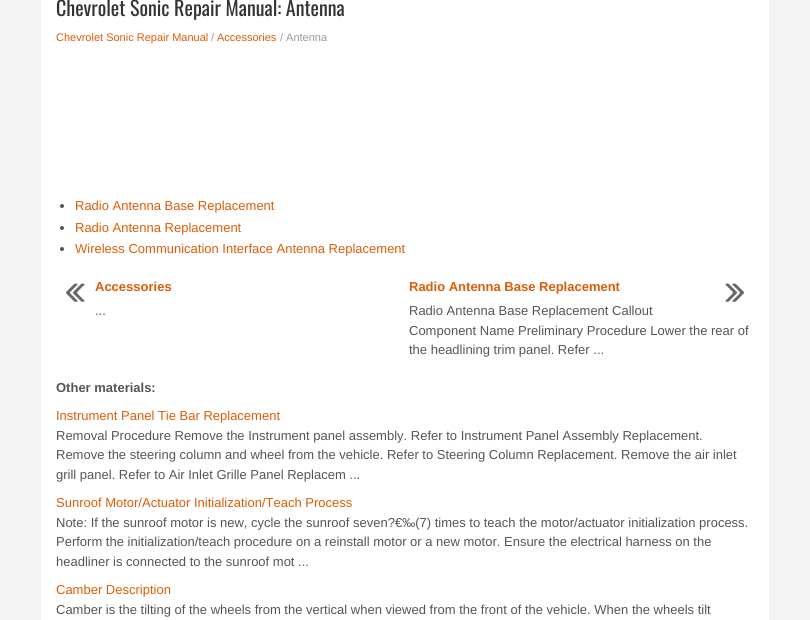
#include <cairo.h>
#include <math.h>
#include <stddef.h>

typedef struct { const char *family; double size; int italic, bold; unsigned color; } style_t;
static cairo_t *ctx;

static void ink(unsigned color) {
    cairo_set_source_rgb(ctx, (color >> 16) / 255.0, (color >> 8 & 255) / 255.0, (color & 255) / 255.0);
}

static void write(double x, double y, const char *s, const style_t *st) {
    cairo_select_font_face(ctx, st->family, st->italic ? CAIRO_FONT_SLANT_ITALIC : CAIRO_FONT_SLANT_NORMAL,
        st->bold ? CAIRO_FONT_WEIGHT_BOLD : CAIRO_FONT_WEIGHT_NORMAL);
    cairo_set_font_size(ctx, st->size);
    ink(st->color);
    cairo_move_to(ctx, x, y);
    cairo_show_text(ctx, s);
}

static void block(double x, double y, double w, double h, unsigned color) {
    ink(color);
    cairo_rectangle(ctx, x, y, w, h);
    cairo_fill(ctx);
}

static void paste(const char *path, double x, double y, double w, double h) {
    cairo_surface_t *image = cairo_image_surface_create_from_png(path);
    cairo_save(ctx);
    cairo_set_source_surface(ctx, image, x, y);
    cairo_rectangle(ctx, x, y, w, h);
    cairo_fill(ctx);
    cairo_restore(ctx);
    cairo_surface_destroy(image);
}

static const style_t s1 = {"Oswald", 20, 0, 0, 0x333333};
static const style_t s2 = {"Liberation Sans", 11, 0, 0, 0xde5c06};
static const style_t s3 = {"Liberation Sans", 11, 0, 0, 0x999999};
static const style_t s4 = {"Liberation Sans", 13, 0, 0, 0xde5c06};
static const style_t s5 = {"Liberation Sans", 13, 0, 1, 0xde5c06};
static const style_t s6 = {"Liberation Sans", 13, 0, 0, 0x555555};
static const style_t s7 = {"Liberation Sans", 13, 0, 1, 0x555555};

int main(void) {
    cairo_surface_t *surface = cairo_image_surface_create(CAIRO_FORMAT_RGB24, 810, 620);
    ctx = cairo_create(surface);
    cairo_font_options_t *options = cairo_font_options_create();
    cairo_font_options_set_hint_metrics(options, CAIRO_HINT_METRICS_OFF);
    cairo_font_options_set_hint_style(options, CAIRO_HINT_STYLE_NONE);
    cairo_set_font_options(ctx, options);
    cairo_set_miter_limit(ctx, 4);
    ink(0xf4f4f4);
    cairo_paint(ctx);
    block(41, 0, 728, 620, 0xffffff);
    write(56, 16, "Chevrolet Sonic Repair Manual: Antenna", &s1);
    write(56, 41, "Chevrolet Sonic Repair Manual", &s2);
    write(211, 41, "/", &s3);
    write(217, 41, "Accessories", &s2);
    write(280, 41, "/ Antenna", &s3);
    ink(0x555555);
    cairo_new_path(ctx);
    cairo_arc(ctx, 62, 206, 2, 0, 2 * M_PI);
    cairo_fill(ctx);
    write(75, 210, "Radio Antenna Base Replacement", &s4);
    ink(0x555555);
    cairo_new_path(ctx);
    cairo_arc(ctx, 62, 228, 2, 0, 2 * M_PI);
    cairo_fill(ctx);
    write(75, 232, "Radio Antenna Replacement", &s4);
    ink(0x555555);
    cairo_new_path(ctx);
    cairo_arc(ctx, 62, 249, 2, 0, 2 * M_PI);
    cairo_fill(ctx);
    write(75, 253, "Wireless Communication Interface Antenna Replacement", &s4);
    paste("pic1.png", 66, 283, 19, 19);
    write(95, 291, "Accessories", &s5);
    write(95, 315, "...", &s6);
    write(409, 291, "Radio Antenna Base Replacement", &s5);
    paste("pic2.png", 725, 283, 19, 19);
    write(409, 315, "Radio Antenna Base Replacement Callout", &s6);
    write(409, 335, "Component Name Preliminary Procedure Lower the rear of", &s6);
    write(409, 354, "the headlining trim panel. Refer ...", &s6);
    write(56, 392, "Other materials:", &s7);
    write(56, 420, "Instrument Panel Tie Bar Replacement", &s4);
    write(56, 440, "Removal Procedure Remove the Instrument panel assembly. Refer to Instrument Panel Assembly Replacement.", &s6);
    write(56, 459, "Remove the steering column and wheel from the vehicle. Refer to Steering Column Replacement. Remove the air inlet", &s6);
    write(56, 479, "grill panel. Refer to Air Inlet Grille Panel Replacem ...", &s6);
    write(56, 507, "Sunroof Motor/Actuator Initialization/Teach Process", &s4);
    write(56, 527, "Note: If the sunroof motor is new, cycle the sunroof seven?€‰(7) times to teach the motor/actuator initialization process.", &s6);
    write(56, 546, "Perform the initialization/teach procedure on a reinstall motor or a new motor. Ensure the electrical harness on the", &s6);
    write(56, 566, "headliner is connected to the sunroof mot ...", &s6);
    write(56, 594, "Camber Description", &s4);
    write(56, 614, "Camber is the tilting of the wheels from the vertical when viewed from the front of the vehicle. When the wheels tilt", &s6);
    cairo_surface_write_to_png(surface, "screenshot.png");
    cairo_font_options_destroy(options);
    cairo_destroy(ctx);
    cairo_surface_destroy(surface);
    return 0;
}
